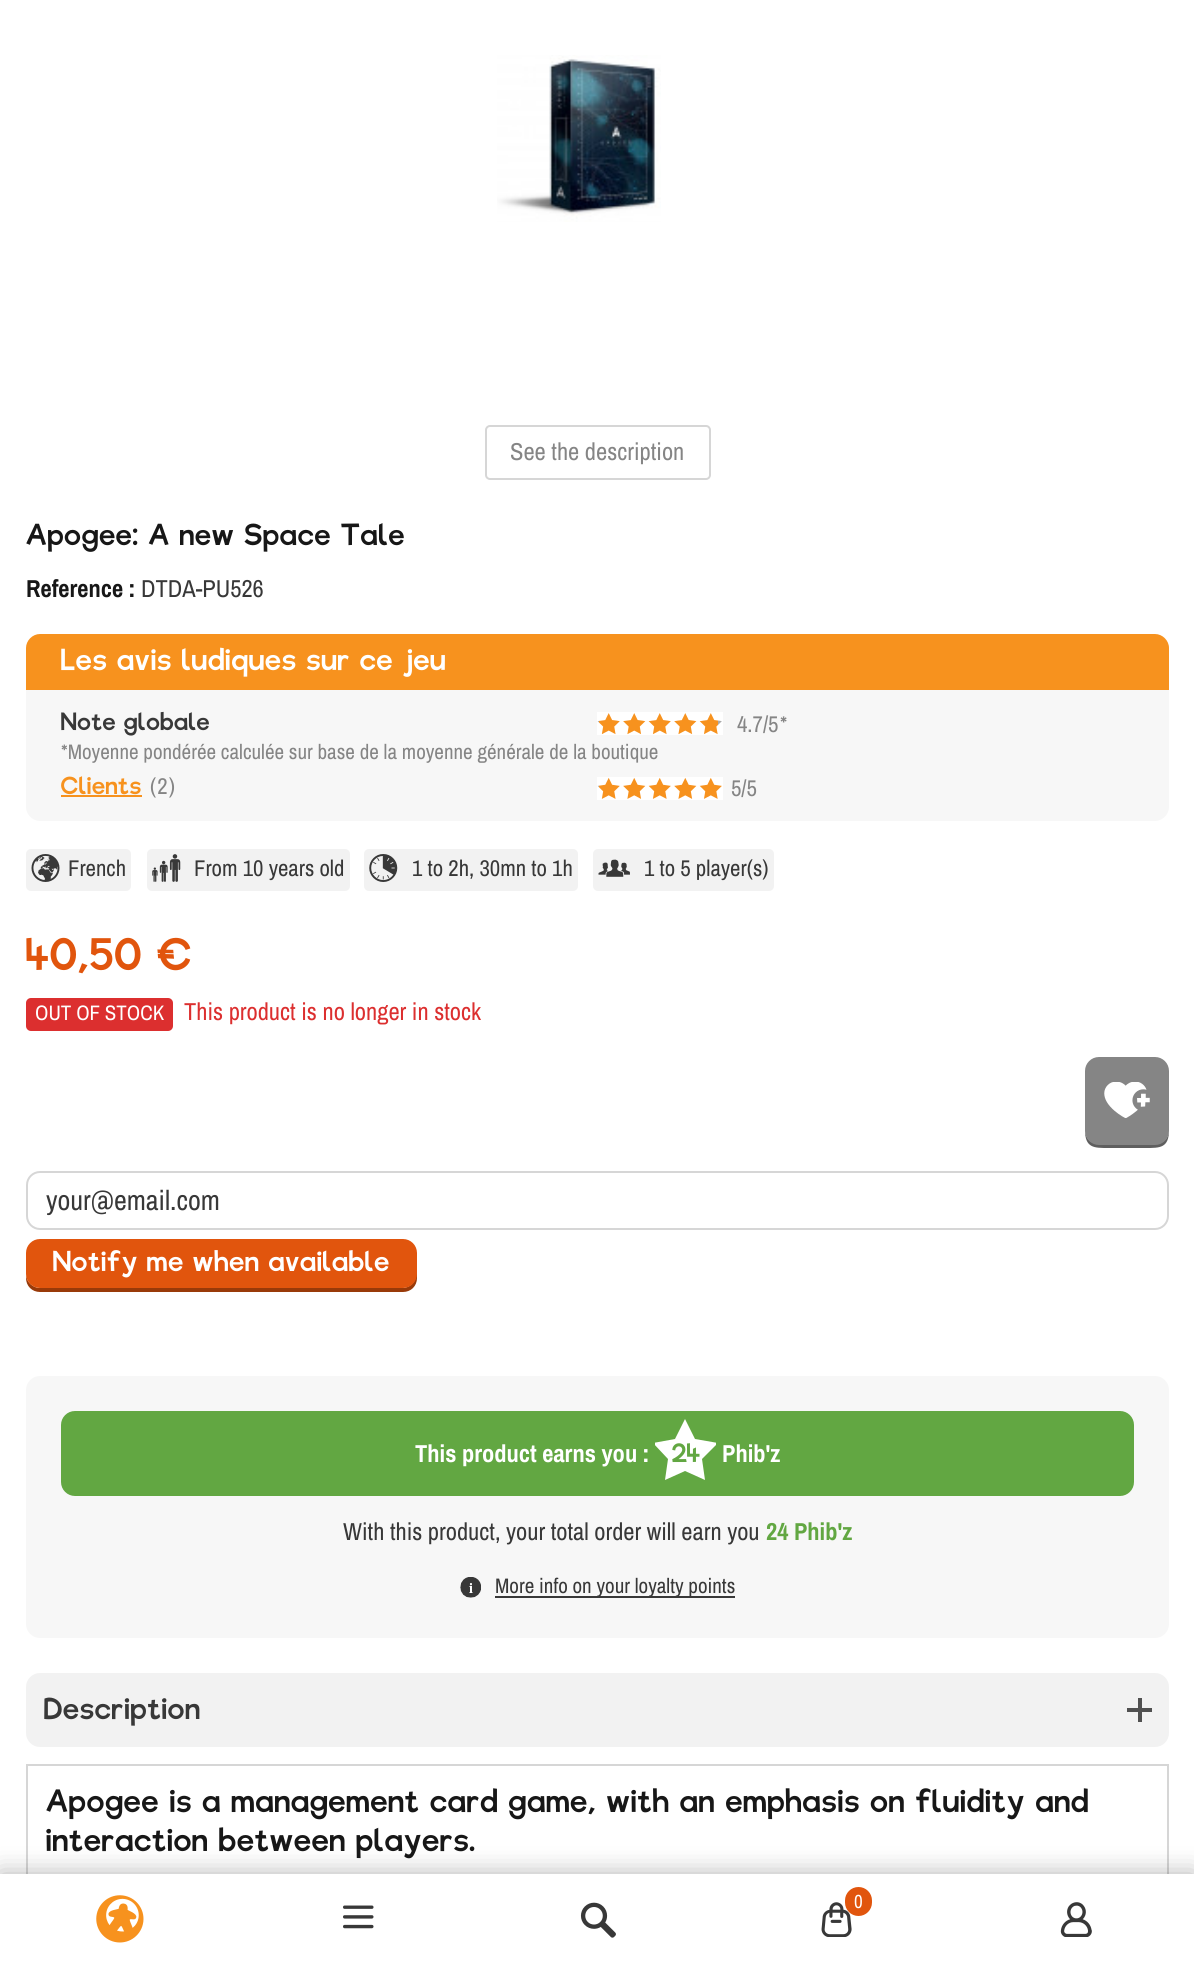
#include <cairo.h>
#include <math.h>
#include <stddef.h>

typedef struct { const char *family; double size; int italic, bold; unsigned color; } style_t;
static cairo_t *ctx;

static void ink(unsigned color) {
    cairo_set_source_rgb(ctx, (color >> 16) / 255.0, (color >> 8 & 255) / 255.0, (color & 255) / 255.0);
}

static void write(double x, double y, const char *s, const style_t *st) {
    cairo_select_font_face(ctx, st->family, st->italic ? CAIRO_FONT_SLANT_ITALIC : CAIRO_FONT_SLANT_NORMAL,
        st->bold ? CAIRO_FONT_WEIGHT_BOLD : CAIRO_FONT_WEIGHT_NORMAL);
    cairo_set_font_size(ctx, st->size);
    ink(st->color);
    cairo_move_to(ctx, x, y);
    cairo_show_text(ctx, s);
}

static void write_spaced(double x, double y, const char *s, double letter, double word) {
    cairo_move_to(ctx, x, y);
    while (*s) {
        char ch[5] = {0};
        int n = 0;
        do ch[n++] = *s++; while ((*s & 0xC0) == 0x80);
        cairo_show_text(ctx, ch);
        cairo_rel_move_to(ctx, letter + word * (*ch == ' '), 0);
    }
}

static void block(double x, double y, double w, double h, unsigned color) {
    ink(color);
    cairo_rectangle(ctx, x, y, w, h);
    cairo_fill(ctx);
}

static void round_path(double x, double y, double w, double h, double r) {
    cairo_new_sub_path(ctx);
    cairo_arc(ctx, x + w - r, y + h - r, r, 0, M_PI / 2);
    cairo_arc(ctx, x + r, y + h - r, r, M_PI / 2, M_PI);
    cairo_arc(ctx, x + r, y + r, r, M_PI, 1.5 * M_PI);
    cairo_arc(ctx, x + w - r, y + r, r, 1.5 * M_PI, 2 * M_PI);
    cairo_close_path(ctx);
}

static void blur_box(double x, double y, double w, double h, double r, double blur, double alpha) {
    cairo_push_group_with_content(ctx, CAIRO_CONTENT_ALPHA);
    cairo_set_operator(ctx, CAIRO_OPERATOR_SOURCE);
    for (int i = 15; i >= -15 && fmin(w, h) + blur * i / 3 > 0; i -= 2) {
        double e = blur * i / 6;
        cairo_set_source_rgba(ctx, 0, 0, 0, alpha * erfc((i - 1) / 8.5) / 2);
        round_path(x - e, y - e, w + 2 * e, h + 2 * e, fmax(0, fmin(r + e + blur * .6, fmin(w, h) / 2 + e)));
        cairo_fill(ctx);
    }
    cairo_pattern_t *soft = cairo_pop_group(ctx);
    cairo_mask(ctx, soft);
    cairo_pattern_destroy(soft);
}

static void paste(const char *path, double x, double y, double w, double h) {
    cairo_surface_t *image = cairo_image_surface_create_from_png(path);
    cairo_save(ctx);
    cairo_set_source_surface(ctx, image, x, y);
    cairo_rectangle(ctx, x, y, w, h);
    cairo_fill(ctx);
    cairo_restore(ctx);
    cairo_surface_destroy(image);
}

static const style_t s1 = {"Archivo Narrow", 24.5, 0, 0, 0x858585};
static const style_t s2 = {"Archivo Narrow", 24.5, 0, 1, 0x171717};
static const style_t s3 = {"Archivo Narrow", 24.5, 0, 0, 0x383838};
static const style_t s4 = {"Archivo Narrow", 22.75, 0, 0, 0x858585};
static const style_t s5 = {"Archivo Narrow", 21, 0, 0, 0x858585};
static const style_t s6 = {"Archivo Narrow", 22.75, 0, 0, 0x383838};
static const style_t s7 = {"Archivo Narrow", 21, 0, 0, 0xffffff};
static const style_t s8 = {"Archivo Narrow", 24.5, 0, 0, 0xdc2f2f};
static const style_t s9 = {"Archivo Narrow", 28, 0, 0, 0x383838};
static const style_t s10 = {"Archivo Narrow", 24.5, 0, 1, 0xffffff};
static const style_t s11 = {"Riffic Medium", 24.5, 0, 0, 0x62a742};
static const style_t s12 = {"Archivo Narrow", 24.5, 0, 1, 0x62a742};
static const style_t s13 = {"Archivo Narrow", 21, 0, 0, 0x383838};
static const style_t s14 = {"Archivo Narrow", 19, 0, 0, 0xffffff};

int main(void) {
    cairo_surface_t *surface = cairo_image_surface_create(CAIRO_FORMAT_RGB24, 1194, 1962);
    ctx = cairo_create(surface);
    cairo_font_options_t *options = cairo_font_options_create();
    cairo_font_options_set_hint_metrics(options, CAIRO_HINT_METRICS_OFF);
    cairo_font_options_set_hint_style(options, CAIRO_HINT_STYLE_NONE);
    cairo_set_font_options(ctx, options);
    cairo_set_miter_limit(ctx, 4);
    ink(0xffffff);
    cairo_paint(ctx);
    paste("pic1.png", 497, 55, 164, 167);
    round_path(486, 426, 224, 53, 4);
    ink(0xd6d6d6);
    cairo_stroke(ctx);
    write(510, 460, "See the description", &s1);
    cairo_select_font_face(ctx, "Riffic Medium", CAIRO_FONT_SLANT_NORMAL, CAIRO_FONT_WEIGHT_NORMAL);
    cairo_set_font_size(ctx, 28);
    ink(0x171717);
    write_spaced(26, 545, "Apogee: A new Space Tale", 1.4, 0);
    write(26, 597, "Reference :", &s2);
    write(141, 597, "DTDA-PU526", &s3);
    ink(0xf7921e);
    cairo_new_path(ctx);
    cairo_move_to(ctx, 40, 634);
    cairo_line_to(ctx, 1155, 634);
    cairo_curve_to(ctx, 1162.5, 634, 1169, 640.5, 1169, 648);
    cairo_line_to(ctx, 1169, 690);
    cairo_line_to(ctx, 26, 690);
    cairo_line_to(ctx, 26, 648);
    cairo_curve_to(ctx, 26, 640.5, 32.5, 634, 40, 634);
    cairo_close_path(ctx);
    cairo_fill(ctx);
    cairo_select_font_face(ctx, "Riffic Medium", CAIRO_FONT_SLANT_NORMAL, CAIRO_FONT_WEIGHT_NORMAL);
    cairo_set_font_size(ctx, 28);
    ink(0xffffff);
    write_spaced(61, 670, "Les avis ludiques sur ce jeu", 1.4, 0);
    ink(0xf7f7f7);
    cairo_new_path(ctx);
    cairo_move_to(ctx, 26, 690);
    cairo_line_to(ctx, 1169, 690);
    cairo_line_to(ctx, 1169, 807);
    cairo_curve_to(ctx, 1169, 814.5, 1162.5, 821, 1155, 821);
    cairo_line_to(ctx, 40, 821);
    cairo_curve_to(ctx, 32.5, 821, 26, 814.5, 26, 807);
    cairo_close_path(ctx);
    cairo_fill(ctx);
    cairo_set_font_size(ctx, 22.75);
    ink(0x383838);
    write_spaced(61, 730, "Note globale", 1.1, 0);
    block(597, 720, 125, 5, 0xababab);
    block(599, 713, 119, 22, 0xf7921e);
    paste("pic2.png", 597, 712, 126, 23);
    write(737, 732, "4.7/5", &s4);
    write(780, 732, "*", &s4);
    write(61, 759, "*Moyenne pondérée calculée sur base de la moyenne générale de la boutique", &s5);
    cairo_select_font_face(ctx, "Riffic Medium", CAIRO_FONT_SLANT_NORMAL, CAIRO_FONT_WEIGHT_NORMAL);
    cairo_set_font_size(ctx, 22.75);
    ink(0xf7921e);
    write_spaced(61, 794, "Clients", 1.1, 0);
    block(61, 795, 81, 2, 0xf7921e);
    cairo_select_font_face(ctx, "Archivo Narrow", CAIRO_FONT_SLANT_NORMAL, CAIRO_FONT_WEIGHT_NORMAL);
    ink(0x858585);
    write_spaced(150, 794, "(2)", 1.1, 0);
    block(597, 785, 2, 3, 0xababab);
    block(599, 777, 123, 22, 0xf7921e);
    paste("pic3.png", 597, 777, 126, 23);
    write(731, 796, "5/5", &s4);
    ink(0xf2f2f2);
    round_path(26, 849, 105, 42, 5);
    cairo_fill(ctx);
    paste("pic4.png", 31, 854, 29, 28);
    write(68, 876, "French", &s6);
    ink(0xf2f2f2);
    round_path(147, 849, 203, 42, 5);
    cairo_fill(ctx);
    paste("pic5.png", 152, 854, 29, 28);
    write(194, 876, "From 10 years old", &s6);
    ink(0xf2f2f2);
    round_path(364, 849, 214, 42, 5);
    cairo_fill(ctx);
    paste("pic6.png", 369, 854, 29, 28);
    write(412, 876, "1 to 2h, 30mn to 1h", &s6);
    ink(0xf2f2f2);
    round_path(593, 849, 181, 42, 5);
    cairo_fill(ctx);
    paste("pic7.png", 598, 859, 32, 18);
    write(644, 876, "1 to 5 player(s)", &s6);
    cairo_select_font_face(ctx, "Riffic Medium", CAIRO_FONT_SLANT_NORMAL, CAIRO_FONT_WEIGHT_NORMAL);
    cairo_set_font_size(ctx, 42);
    ink(0xe1550d);
    write_spaced(26, 970, "40,50 €", 2, 0);
    ink(0xdc2f2f);
    round_path(26, 998, 147, 33, 5);
    cairo_fill(ctx);
    write(35, 1020, "OUT OF STOCK", &s7);
    write(184, 1020, "This product is no longer in stock", &s8);
    ink(0x5f5f5f);
    cairo_new_path(ctx);
    cairo_move_to(ctx, 1085, 1130);
    cairo_curve_to(ctx, 1085, 1148, 1094, 1148, 1108, 1148);
    cairo_line_to(ctx, 1146, 1148);
    cairo_curve_to(ctx, 1160, 1148, 1169, 1148, 1169, 1130);
    cairo_curve_to(ctx, 1169, 1138, 1163, 1144, 1155, 1144);
    cairo_line_to(ctx, 1099, 1144);
    cairo_curve_to(ctx, 1091, 1144, 1085, 1138, 1085, 1130);
    cairo_close_path(ctx);
    cairo_fill(ctx);
    ink(0x858585);
    round_path(1085, 1057, 84, 88, 14);
    cairo_fill(ctx);
    paste("pic8.png", 1104, 1082, 46, 36);
    round_path(27, 1172, 1141, 57, 13);
    ink(0xd6d6d6);
    cairo_stroke(ctx);
    write(46, 1210, "your@email.com", &s9);
    ink(0x993a09);
    cairo_new_path(ctx);
    cairo_move_to(ctx, 26, 1254);
    cairo_line_to(ctx, 26, 1278);
    cairo_curve_to(ctx, 26, 1286, 32, 1292, 40, 1292);
    cairo_line_to(ctx, 403, 1292);
    cairo_curve_to(ctx, 411, 1292, 417, 1286, 417, 1278);
    cairo_line_to(ctx, 417, 1257);
    cairo_line_to(ctx, 416, 1253);
    cairo_line_to(ctx, 416, 1274);
    cairo_curve_to(ctx, 416, 1282, 410, 1288, 402, 1288);
    cairo_line_to(ctx, 40, 1288);
    cairo_curve_to(ctx, 33, 1288, 26, 1282, 26, 1274);
    cairo_close_path(ctx);
    cairo_fill(ctx);
    ink(0xe1550d);
    round_path(26, 1239, 391, 49, 14);
    cairo_fill(ctx);
    cairo_select_font_face(ctx, "Riffic Medium", CAIRO_FONT_SLANT_NORMAL, CAIRO_FONT_WEIGHT_NORMAL);
    cairo_set_font_size(ctx, 26.25);
    ink(0xffffff);
    write_spaced(53, 1271, "Notify me when available", 1.3, 0);
    ink(0xf7f7f7);
    round_path(26, 1376, 1143, 262, 14);
    cairo_fill(ctx);
    ink(0x62a742);
    round_path(61, 1411, 1073, 85, 14);
    cairo_fill(ctx);
    write(415, 1462, "This product earns you :", &s10);
    cairo_save(ctx);
    cairo_rectangle(ctx, 655, 1419, 61, 62);
    cairo_clip(ctx);
    cairo_new_path(ctx);
    cairo_move_to(ctx, 685, 1419);
    cairo_line_to(ctx, 695, 1439);
    cairo_line_to(ctx, 718, 1443);
    cairo_line_to(ctx, 702, 1459);
    cairo_line_to(ctx, 705, 1480);
    cairo_line_to(ctx, 685, 1471);
    cairo_line_to(ctx, 665, 1480);
    cairo_line_to(ctx, 668, 1459);
    cairo_line_to(ctx, 653, 1443);
    cairo_line_to(ctx, 675, 1439);
    cairo_close_path(ctx);
    cairo_fill(ctx);
    cairo_restore(ctx);
    write(672, 1462, "24", &s11);
    write(722, 1462, "Phib'z", &s10);
    write(343, 1540, "With this product, your total order will earn you", &s3);
    write(766, 1540, "24 Phib'z", &s12);
    paste("pic9.png", 460, 1577, 21, 21);
    block(495, 1596, 240, 2, 0x383838);
    write(495, 1593, "More info on your loyalty points", &s13);
    ink(0xf2f2f2);
    round_path(26, 1673, 1143, 74, 14);
    cairo_fill(ctx);
    cairo_select_font_face(ctx, "Riffic Medium", CAIRO_FONT_SLANT_NORMAL, CAIRO_FONT_WEIGHT_NORMAL);
    cairo_set_font_size(ctx, 28);
    ink(0x383838);
    write_spaced(44, 1719, "Description", 1.4, 0);
    block(1138, 1698, 4, 24, 0x505050);
    block(1127, 1708, 25, 4, 0x505050);
    cairo_rectangle(ctx, 27, 1765, 1141, 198);
    ink(0xd6d6d6);
    cairo_stroke(ctx);
    cairo_set_font_size(ctx, 29.75);
    ink(0x171717);
    write_spaced(46, 1812, "Apogee is a management card game, with an emphasis on fluidity and", 1.5, 0);
    write_spaced(46, 1851, "interaction between players.", 1.5, 0);
    ink(0x000000);
    blur_box(0, 1874, 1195, 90, 0, 13, 0.3);
    block(0, 1874, 1194, 88, 0xffffff);
    paste("pic10.png", 96, 1895, 48, 48);
    paste("pic11.png", 343, 1905, 31, 24);
    paste("pic12.png", 580, 1902, 36, 36);
    paste("pic13.png", 821, 1902, 31, 35);
    ink(0xe1550d);
    round_path(845, 1887, 27, 29, 13.5);
    cairo_fill(ctx);
    write(854, 1908, "0", &s14);
    paste("pic14.png", 1060, 1902, 32, 35);
    cairo_surface_write_to_png(surface, "screenshot.png");
    cairo_font_options_destroy(options);
    cairo_destroy(ctx);
    cairo_surface_destroy(surface);
    return 0;
}
